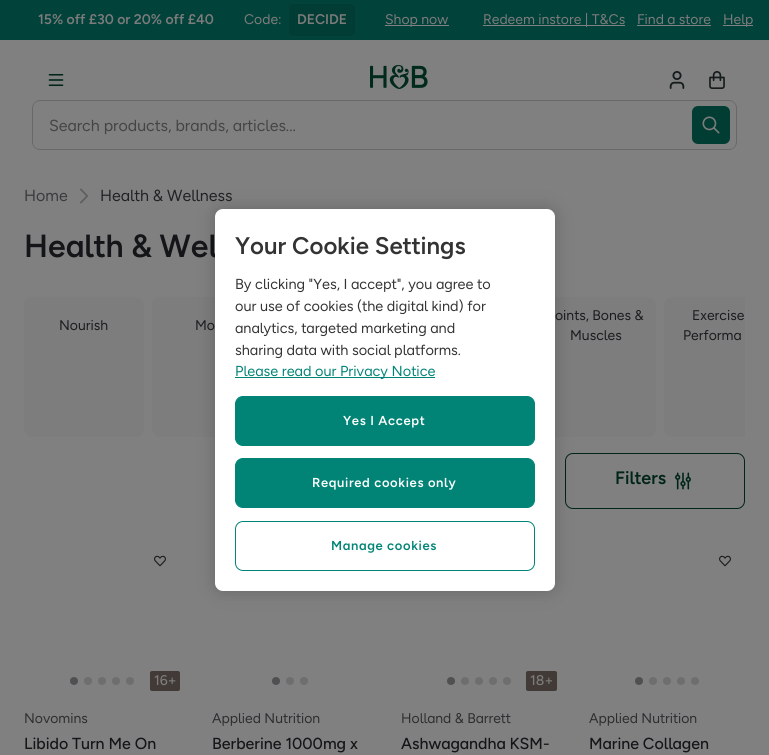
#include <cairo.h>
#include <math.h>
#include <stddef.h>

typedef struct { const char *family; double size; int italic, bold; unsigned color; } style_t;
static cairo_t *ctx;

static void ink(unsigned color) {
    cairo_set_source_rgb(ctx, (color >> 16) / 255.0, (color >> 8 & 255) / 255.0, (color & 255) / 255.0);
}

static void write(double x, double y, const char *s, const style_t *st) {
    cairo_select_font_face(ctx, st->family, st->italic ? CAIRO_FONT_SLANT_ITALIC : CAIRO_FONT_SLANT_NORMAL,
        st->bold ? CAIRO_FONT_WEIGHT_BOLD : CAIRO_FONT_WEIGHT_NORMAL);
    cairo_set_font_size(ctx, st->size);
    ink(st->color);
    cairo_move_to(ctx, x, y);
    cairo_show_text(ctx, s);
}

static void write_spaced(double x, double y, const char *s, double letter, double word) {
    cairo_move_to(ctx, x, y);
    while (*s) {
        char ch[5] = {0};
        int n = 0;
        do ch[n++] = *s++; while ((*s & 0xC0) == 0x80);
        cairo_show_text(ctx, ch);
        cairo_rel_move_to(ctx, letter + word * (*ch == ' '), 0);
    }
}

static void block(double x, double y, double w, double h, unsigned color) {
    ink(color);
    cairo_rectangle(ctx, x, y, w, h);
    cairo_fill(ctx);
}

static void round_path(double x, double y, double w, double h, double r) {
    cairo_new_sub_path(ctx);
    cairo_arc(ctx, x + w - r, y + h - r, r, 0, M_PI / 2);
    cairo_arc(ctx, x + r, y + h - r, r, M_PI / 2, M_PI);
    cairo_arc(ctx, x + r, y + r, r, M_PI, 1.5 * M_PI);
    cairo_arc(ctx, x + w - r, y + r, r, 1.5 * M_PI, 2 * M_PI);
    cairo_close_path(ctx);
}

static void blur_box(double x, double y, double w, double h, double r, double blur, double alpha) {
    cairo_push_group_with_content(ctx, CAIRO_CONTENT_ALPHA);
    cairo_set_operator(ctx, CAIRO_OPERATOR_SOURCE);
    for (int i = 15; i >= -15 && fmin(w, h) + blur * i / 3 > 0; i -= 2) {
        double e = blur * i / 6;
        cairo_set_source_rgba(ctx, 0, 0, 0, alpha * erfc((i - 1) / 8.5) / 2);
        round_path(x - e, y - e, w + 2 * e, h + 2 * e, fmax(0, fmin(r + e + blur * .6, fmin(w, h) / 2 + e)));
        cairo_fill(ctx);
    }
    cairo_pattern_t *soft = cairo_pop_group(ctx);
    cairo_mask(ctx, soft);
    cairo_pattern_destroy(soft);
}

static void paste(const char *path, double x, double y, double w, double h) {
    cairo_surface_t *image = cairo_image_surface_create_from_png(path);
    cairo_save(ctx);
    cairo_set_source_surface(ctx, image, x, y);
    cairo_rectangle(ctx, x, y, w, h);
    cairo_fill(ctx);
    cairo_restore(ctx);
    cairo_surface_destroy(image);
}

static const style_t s1 = {"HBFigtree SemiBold", 14, 0, 0, 0x7d7c7b};
static const style_t s2 = {"HBFigtree", 14, 0, 0, 0x7d7c7b};
static const style_t s3 = {"HBFigtree", 16, 0, 0, 0x444446};
static const style_t s4 = {"HBFigtree", 16, 0, 0, 0x38393b};
static const style_t s5 = {"HBFigtree", 16, 0, 0, 0x202124};
static const style_t s6 = {"HBFigtree SemiBold", 32, 0, 0, 0x141518};
static const style_t s7 = {"HBFigtree", 14, 0, 0, 0x1a1b1e};
static const style_t s8 = {"HBFigtree SemiBold", 18, 0, 0, 0x002417};
static const style_t s9 = {"HBFigtree Medium", 14, 0, 0, 0x7d7c7b};
static const style_t s10 = {"HBFigtree", 14, 0, 0, 0x2c2d2f};
static const style_t s11 = {"HBFigtree Medium", 16, 0, 0, 0x141518};
static const style_t s12 = {"HBFigtree SemiBold", 24, 0, 0, 0x333333};
static const style_t s13 = {"HBFigtree", 14.5, 0, 0, 0x333333};
static const style_t s14 = {"HBFigtree", 14.5, 0, 0, 0x018476};

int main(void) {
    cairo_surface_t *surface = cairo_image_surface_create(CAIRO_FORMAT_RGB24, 769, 755);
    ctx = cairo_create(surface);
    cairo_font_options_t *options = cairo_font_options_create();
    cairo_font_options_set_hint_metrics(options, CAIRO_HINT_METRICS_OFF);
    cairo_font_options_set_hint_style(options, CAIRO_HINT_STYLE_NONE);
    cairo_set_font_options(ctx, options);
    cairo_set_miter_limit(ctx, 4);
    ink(0x808080);
    cairo_paint(ctx);
    block(0, 0, 769, 40, 0x01423b);
    write(38, 24, "15% off £30 or 20% off £40", &s1);
    write(244, 24, "Code:", &s2);
    ink(0x013c35);
    round_path(289, 4, 66, 32, 4);
    cairo_fill(ctx);
    write(297, 24, "DECIDE", &s1);
    block(385, 25, 64, 1, 0x808080);
    write(385, 24, "Shop now", &s2);
    block(483, 25, 142, 1, 0x808080);
    write(483, 24, "Redeem instore | T&Cs", &s2);
    write(637, 24, "Find a store", &s2);
    block(637, 25, 74, 1, 0x808080);
    block(723, 25, 30, 1, 0x808080);
    write(723, 24, "Help", &s2);
    paste("pic1.png", 48, 74, 16, 12);
    paste("pic2.png", 370, 65, 58, 24);
    paste("pic3.png", 669, 71, 16, 18);
    paste("pic4.png", 709, 71, 16, 18);
    ink(0x686869);
    cairo_set_fill_rule(ctx, CAIRO_FILL_RULE_EVEN_ODD);
    cairo_new_path(ctx);
    cairo_move_to(ctx, 40, 100);
    cairo_line_to(ctx, 692, 100);
    cairo_line_to(ctx, 692, 150);
    cairo_line_to(ctx, 40, 150);
    cairo_curve_to(ctx, 36, 150, 32, 146, 32, 142);
    cairo_line_to(ctx, 32, 108);
    cairo_curve_to(ctx, 32, 104, 36, 100, 40, 100);
    cairo_close_path(ctx);
    cairo_move_to(ctx, 40, 101);
    cairo_line_to(ctx, 692, 101);
    cairo_line_to(ctx, 692, 149);
    cairo_line_to(ctx, 40, 149);
    cairo_curve_to(ctx, 36, 149, 33, 146, 33, 142);
    cairo_line_to(ctx, 33, 108);
    cairo_curve_to(ctx, 33, 104, 36, 101, 40, 101);
    cairo_close_path(ctx);
    cairo_fill(ctx);
    write(49, 131, "Search products, brands, articles...", &s3);
    ink(0x686869);
    cairo_new_path(ctx);
    cairo_move_to(ctx, 692, 100);
    cairo_line_to(ctx, 729, 100);
    cairo_curve_to(ctx, 733, 100, 737, 104, 737, 108);
    cairo_line_to(ctx, 737, 142);
    cairo_curve_to(ctx, 737, 146, 733, 150, 729, 150);
    cairo_line_to(ctx, 692, 150);
    cairo_close_path(ctx);
    cairo_move_to(ctx, 692, 101);
    cairo_line_to(ctx, 729, 101);
    cairo_curve_to(ctx, 733, 101, 736, 104, 736, 108);
    cairo_line_to(ctx, 736, 142);
    cairo_curve_to(ctx, 736, 146, 733, 149, 729, 149);
    cairo_line_to(ctx, 692, 149);
    cairo_close_path(ctx);
    cairo_fill(ctx);
    ink(0x013d33);
    round_path(692, 106, 38, 38, 6);
    cairo_fill(ctx);
    paste("pic5.png", 702, 116, 18, 18);
    write(24, 201, "Home", &s4);
    paste("pic6.png", 80, 188, 8, 16);
    write(100, 201, "Health & Wellness", &s5);
    write(24, 257, "Health & Wel", &s6);
    ink(0x7d7d7d);
    round_path(24, 297, 120, 140, 8);
    cairo_fill(ctx);
    write(59, 330, "Nourish", &s7);
    ink(0x7d7d7d);
    round_path(152, 297, 120, 140, 8);
    cairo_fill(ctx);
    write(195, 330, "Mo", &s7);
    ink(0x7d7d7d);
    round_path(536, 297, 120, 140, 8);
    cairo_fill(ctx);
    write(555, 320, "oints, Bones &", &s7);
    write(570, 340, "Muscles", &s7);
    ink(0x7d7d7d);
    cairo_new_path(ctx);
    cairo_move_to(ctx, 672, 297);
    cairo_line_to(ctx, 745, 297);
    cairo_line_to(ctx, 745, 437);
    cairo_line_to(ctx, 672, 437);
    cairo_curve_to(ctx, 667.5, 437, 664, 433.5, 664, 429);
    cairo_line_to(ctx, 664, 305);
    cairo_curve_to(ctx, 664, 300.5, 667.5, 297, 672, 297);
    cairo_close_path(ctx);
    cairo_fill(ctx);
    write(692, 320, "Exercise", &s7);
    write(683, 340, "Performa", &s7);
    round_path(565.5, 453.5, 179, 55, 7.5);
    ink(0x002417);
    cairo_set_line_width(ctx, 1);
    cairo_stroke(ctx);
    write(615, 484, "Filters", &s8);
    paste("pic7.png", 675, 472, 16, 18);
    paste("pic8.png", 154, 555, 12, 12);
    ink(0x505052);
    cairo_arc(ctx, 74, 681, 4, 0, 2 * M_PI);
    cairo_fill(ctx);
    ink(0x6e6e6f);
    cairo_arc(ctx, 88, 681, 4, 0, 2 * M_PI);
    cairo_fill(ctx);
    cairo_arc(ctx, 102, 681, 4, 0, 2 * M_PI);
    cairo_fill(ctx);
    cairo_arc(ctx, 116, 681, 4, 0, 2 * M_PI);
    cairo_fill(ctx);
    cairo_arc(ctx, 130, 681, 4, 0, 2 * M_PI);
    cairo_fill(ctx);
    ink(0x413a36);
    round_path(150, 671, 30, 20, 2);
    cairo_fill(ctx);
    write(154, 685, "16+", &s9);
    write(24, 723, "Novomins", &s10);
    write(24, 749, "Libido Turn Me On", &s11);
    ink(0x505052);
    cairo_new_path(ctx);
    cairo_arc(ctx, 276, 681, 4, 0, 2 * M_PI);
    cairo_fill(ctx);
    ink(0x6e6e6f);
    cairo_arc(ctx, 290, 681, 4, 0, 2 * M_PI);
    cairo_fill(ctx);
    cairo_arc(ctx, 304, 681, 4, 0, 2 * M_PI);
    cairo_fill(ctx);
    write(212, 723, "Applied Nutrition", &s10);
    write(212, 749, "Berberine 1000mg x", &s11);
    ink(0x505052);
    cairo_new_path(ctx);
    cairo_arc(ctx, 451, 681, 4, 0, 2 * M_PI);
    cairo_fill(ctx);
    ink(0x6e6e6f);
    cairo_arc(ctx, 465, 681, 4, 0, 2 * M_PI);
    cairo_fill(ctx);
    cairo_arc(ctx, 479, 681, 4, 0, 2 * M_PI);
    cairo_fill(ctx);
    cairo_arc(ctx, 493, 681, 4, 0, 2 * M_PI);
    cairo_fill(ctx);
    cairo_arc(ctx, 507, 681, 4, 0, 2 * M_PI);
    cairo_fill(ctx);
    ink(0x413a36);
    round_path(526, 671, 31, 20, 2);
    cairo_fill(ctx);
    write(530, 685, "18+", &s9);
    write(401, 723, "Holland & Barrett", &s10);
    write(401, 749, "Ashwagandha KSM-", &s11);
    paste("pic8.png", 719, 555, 12, 12);
    ink(0x505052);
    cairo_arc(ctx, 639, 681, 4, 0, 2 * M_PI);
    cairo_fill(ctx);
    ink(0x6e6e6f);
    cairo_arc(ctx, 653, 681, 4, 0, 2 * M_PI);
    cairo_fill(ctx);
    cairo_arc(ctx, 667, 681, 4, 0, 2 * M_PI);
    cairo_fill(ctx);
    cairo_arc(ctx, 681, 681, 4, 0, 2 * M_PI);
    cairo_fill(ctx);
    cairo_arc(ctx, 695, 681, 4, 0, 2 * M_PI);
    cairo_fill(ctx);
    write(589, 723, "Applied Nutrition", &s10);
    write(589, 749, "Marine Collagen", &s11);
    ink(0x000000);
    blur_box(215, 209, 340, 382, 8, 9, 0.2);
    ink(0xffffff);
    round_path(215, 209, 340, 382, 8);
    cairo_fill(ctx);
    write(235, 254, "Your Cookie Settings", &s12);
    write(235, 289, "By clicking \"Yes, I accept\", you agree to", &s13);
    write(235, 311, "our use of cookies (the digital kind) for", &s13);
    write(235, 333, "analytics, targeted marketing and", &s13);
    write(235, 355, "sharing data with social platforms.", &s13);
    block(235, 377, 200, 1, 0x018476);
    write(235, 376, "Please read our Privacy Notice", &s14);
    round_path(235.5, 396.5, 299, 49, 7.5);
    cairo_fill_preserve(ctx);
    cairo_stroke(ctx);
    cairo_select_font_face(ctx, "HBFigtree SemiBold", CAIRO_FONT_SLANT_NORMAL, CAIRO_FONT_WEIGHT_NORMAL);
    cairo_set_font_size(ctx, 13);
    ink(0xffffff);
    write_spaced(343, 425, "Yes I Accept", 0.65, 0);
    ink(0x018476);
    round_path(235.5, 458.5, 299, 49, 7.5);
    cairo_fill_preserve(ctx);
    cairo_stroke(ctx);
    ink(0xffffff);
    write_spaced(312, 487, "Required cookies only", 0.65, 0);
    round_path(235.5, 521.5, 299, 49, 7.5);
    ink(0x018476);
    cairo_stroke(ctx);
    write_spaced(331, 550, "Manage cookies", 0.65, 0);
    cairo_surface_write_to_png(surface, "screenshot.png");
    cairo_font_options_destroy(options);
    cairo_destroy(ctx);
    cairo_surface_destroy(surface);
    return 0;
}
